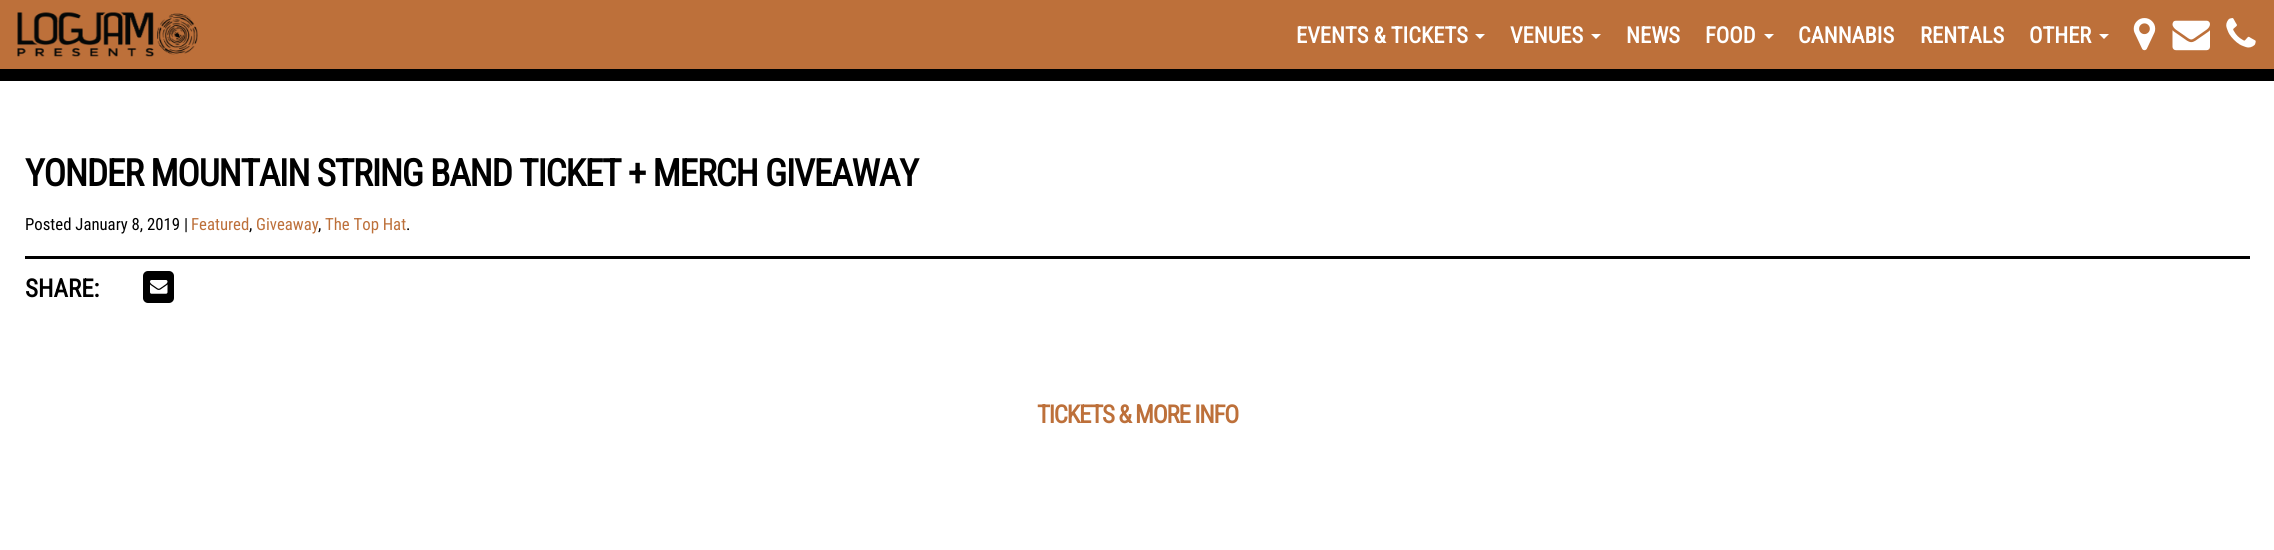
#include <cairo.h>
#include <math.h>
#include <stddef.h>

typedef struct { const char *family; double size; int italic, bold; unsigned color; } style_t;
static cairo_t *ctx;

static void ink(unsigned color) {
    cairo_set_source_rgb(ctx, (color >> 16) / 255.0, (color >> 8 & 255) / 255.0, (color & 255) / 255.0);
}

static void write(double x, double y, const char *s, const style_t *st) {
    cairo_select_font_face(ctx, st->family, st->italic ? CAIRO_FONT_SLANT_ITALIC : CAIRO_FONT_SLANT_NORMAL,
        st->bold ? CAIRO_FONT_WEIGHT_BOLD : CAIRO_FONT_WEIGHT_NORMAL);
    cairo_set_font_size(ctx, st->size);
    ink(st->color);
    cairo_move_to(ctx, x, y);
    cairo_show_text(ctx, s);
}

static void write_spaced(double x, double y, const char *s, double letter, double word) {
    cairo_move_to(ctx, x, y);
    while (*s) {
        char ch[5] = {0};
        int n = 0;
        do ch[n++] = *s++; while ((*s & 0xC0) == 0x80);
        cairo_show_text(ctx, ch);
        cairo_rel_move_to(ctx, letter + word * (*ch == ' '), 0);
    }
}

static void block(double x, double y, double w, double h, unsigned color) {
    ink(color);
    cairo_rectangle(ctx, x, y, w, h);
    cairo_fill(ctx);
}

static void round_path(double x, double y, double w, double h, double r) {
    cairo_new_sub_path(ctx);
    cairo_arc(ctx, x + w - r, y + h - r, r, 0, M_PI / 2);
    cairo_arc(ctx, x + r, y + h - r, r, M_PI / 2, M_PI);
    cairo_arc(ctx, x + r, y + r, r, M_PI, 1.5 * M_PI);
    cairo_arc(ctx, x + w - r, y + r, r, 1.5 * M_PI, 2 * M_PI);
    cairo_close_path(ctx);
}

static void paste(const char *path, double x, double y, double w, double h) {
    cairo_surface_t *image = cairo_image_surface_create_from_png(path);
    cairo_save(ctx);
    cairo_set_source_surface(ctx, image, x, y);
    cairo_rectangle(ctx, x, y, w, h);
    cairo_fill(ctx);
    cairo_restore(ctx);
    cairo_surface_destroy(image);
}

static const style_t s1 = {"Roboto Condensed", 22.5, 0, 1, 0xffffff};
static const style_t s2 = {"Roboto Condensed", 16.75, 0, 0, 0x000000};
static const style_t s3 = {"Roboto Condensed", 16.75, 0, 0, 0xbd703a};
static const style_t s4 = {"Roboto Condensed", 25, 0, 1, 0x000000};

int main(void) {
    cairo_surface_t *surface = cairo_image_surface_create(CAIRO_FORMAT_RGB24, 2274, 550);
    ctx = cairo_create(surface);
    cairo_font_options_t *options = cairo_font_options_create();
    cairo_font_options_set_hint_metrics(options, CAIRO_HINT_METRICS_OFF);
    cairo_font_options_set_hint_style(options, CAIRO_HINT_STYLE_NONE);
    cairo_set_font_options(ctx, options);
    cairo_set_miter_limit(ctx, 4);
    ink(0xffffff);
    cairo_paint(ctx);
    block(0, 0, 2274, 69, 0xbd703a);
    block(0, 69, 2274, 12, 0x000000);
    paste("pic1.png", 17, 12, 181, 45);
    write(1296, 43, "EVENTS & TICKETS", &s1);
    cairo_new_path(ctx);
    cairo_move_to(ctx, 1475, 34);
    cairo_line_to(ctx, 1485, 34);
    cairo_line_to(ctx, 1480, 39);
    cairo_close_path(ctx);
    cairo_fill(ctx);
    write(1510, 43, "VENUES", &s1);
    cairo_new_path(ctx);
    cairo_move_to(ctx, 1591, 34);
    cairo_line_to(ctx, 1601, 34);
    cairo_line_to(ctx, 1596, 39);
    cairo_close_path(ctx);
    cairo_fill(ctx);
    write(1626, 43, "NEWS", &s1);
    write(1705, 43, "FOOD", &s1);
    cairo_new_path(ctx);
    cairo_move_to(ctx, 1764, 34);
    cairo_line_to(ctx, 1774, 34);
    cairo_line_to(ctx, 1769, 39);
    cairo_close_path(ctx);
    cairo_fill(ctx);
    write(1798, 43, "CANNABIS", &s1);
    write(1920, 43, "RENTALS", &s1);
    write(2029, 43, "OTHER", &s1);
    cairo_new_path(ctx);
    cairo_move_to(ctx, 2099, 34);
    cairo_line_to(ctx, 2109, 34);
    cairo_line_to(ctx, 2104, 39);
    cairo_close_path(ctx);
    cairo_fill(ctx);
    paste("pic2.png", 2133, 18, 23, 33);
    paste("pic3.png", 2172, 20, 38, 31);
    paste("pic4.png", 2226, 18, 30, 30);
    cairo_set_font_size(ctx, 37.5);
    ink(0x000000);
    write_spaced(25, 186, "YONDER MOUNTAIN STRING BAND TICKET + MERCH GIVEAWAY", -1.25, 0);
    write(25, 230, "Posted January 8, 2019 |", &s2);
    write(191, 230, "Featured", &s3);
    write(249, 230, ",", &s2);
    write(256, 230, "Giveaway", &s3);
    write(318, 230, ",", &s2);
    write(325, 230, "The Top Hat", &s3);
    write(406, 230, ".", &s2);
    block(25, 256, 2225, 3, 0x000000);
    write(25, 297, "SHARE:", &s4);
    round_path(143, 271, 31, 32, 5);
    cairo_fill(ctx);
    paste("pic5.png", 150, 280, 18, 14);
    ink(0xbd703a);
    write_spaced(1037, 423, "TICKETS & MORE INFO", -1.25, 0);
    cairo_surface_write_to_png(surface, "screenshot.png");
    cairo_font_options_destroy(options);
    cairo_destroy(ctx);
    cairo_surface_destroy(surface);
    return 0;
}
